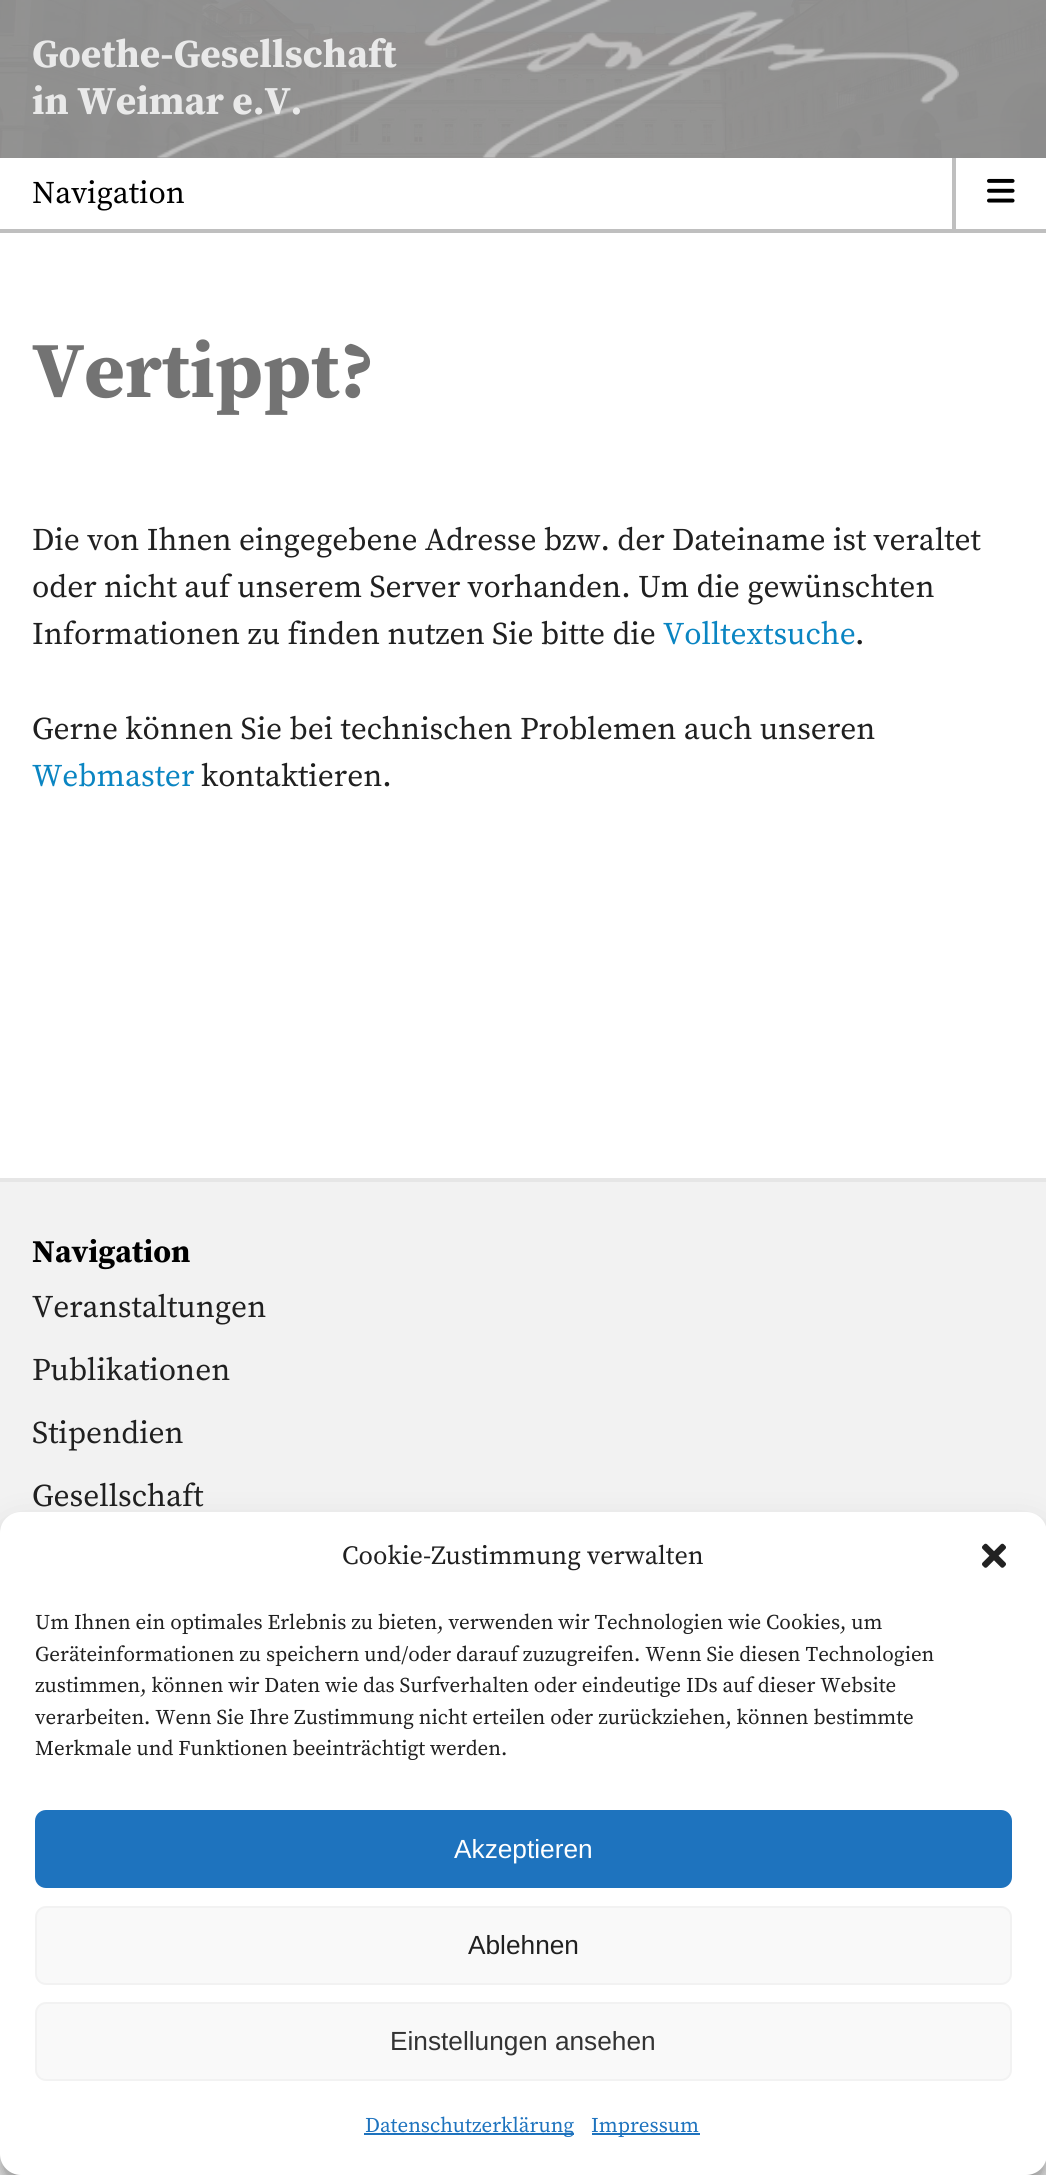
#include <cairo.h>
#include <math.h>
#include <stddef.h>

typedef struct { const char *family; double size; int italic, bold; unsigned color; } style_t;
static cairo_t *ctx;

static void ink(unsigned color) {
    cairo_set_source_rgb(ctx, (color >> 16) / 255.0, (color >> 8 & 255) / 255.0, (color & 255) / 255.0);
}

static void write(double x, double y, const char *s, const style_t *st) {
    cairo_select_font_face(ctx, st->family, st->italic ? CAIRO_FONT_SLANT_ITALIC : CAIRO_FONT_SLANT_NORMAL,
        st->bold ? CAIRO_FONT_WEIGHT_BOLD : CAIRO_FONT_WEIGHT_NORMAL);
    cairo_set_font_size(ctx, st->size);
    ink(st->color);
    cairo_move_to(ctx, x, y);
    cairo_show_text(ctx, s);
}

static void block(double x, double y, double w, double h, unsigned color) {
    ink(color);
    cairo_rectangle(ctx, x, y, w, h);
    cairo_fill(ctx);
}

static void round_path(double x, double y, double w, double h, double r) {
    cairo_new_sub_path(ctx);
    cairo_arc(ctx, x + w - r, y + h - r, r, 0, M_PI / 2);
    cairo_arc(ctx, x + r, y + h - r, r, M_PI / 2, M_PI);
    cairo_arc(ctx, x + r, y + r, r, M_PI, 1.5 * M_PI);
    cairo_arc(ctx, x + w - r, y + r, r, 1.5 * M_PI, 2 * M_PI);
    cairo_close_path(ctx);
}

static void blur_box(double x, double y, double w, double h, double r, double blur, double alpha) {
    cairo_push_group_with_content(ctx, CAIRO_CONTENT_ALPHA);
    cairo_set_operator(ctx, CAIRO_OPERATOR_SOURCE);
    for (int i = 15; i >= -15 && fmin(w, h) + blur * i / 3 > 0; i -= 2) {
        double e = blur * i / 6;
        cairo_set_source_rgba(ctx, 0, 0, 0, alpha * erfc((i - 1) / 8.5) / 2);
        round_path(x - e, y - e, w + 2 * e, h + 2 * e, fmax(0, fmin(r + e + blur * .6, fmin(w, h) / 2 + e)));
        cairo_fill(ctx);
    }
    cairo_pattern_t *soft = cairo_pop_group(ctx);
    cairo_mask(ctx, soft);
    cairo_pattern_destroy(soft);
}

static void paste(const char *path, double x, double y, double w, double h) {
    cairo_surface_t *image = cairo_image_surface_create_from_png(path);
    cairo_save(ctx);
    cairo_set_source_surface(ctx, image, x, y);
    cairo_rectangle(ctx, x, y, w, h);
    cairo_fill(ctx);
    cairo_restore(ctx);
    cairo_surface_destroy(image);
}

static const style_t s1 = {"Source Serif Pro", 39.4, 0, 1, 0xe9e9e9};
static const style_t s2 = {"Source Serif Pro", 31.5, 0, 0, 0x000000};
static const style_t s3 = {"Source Serif Pro", 78.75, 0, 1, 0x737373};
static const style_t s4 = {"Source Serif Pro", 31.5, 0, 0, 0x202020};
static const style_t s5 = {"Source Serif Pro", 31.5, 0, 0, 0x0a85c2};
static const style_t s6 = {"Source Serif Pro", 31.5, 0, 1, 0x000000};
static const style_t s7 = {"Source Serif Pro", 26.25, 0, 0, 0x202020};
static const style_t s8 = {"Source Serif Pro", 21, 0, 0, 0x202020};
static const style_t s9 = {"Liberation Sans", 26.25, 0, 0, 0xffffff};
static const style_t s10 = {"Liberation Sans", 26.25, 0, 0, 0x202020};
static const style_t s11 = {"Liberation Sans", 26.25, 0, 0, 0x333333};
static const style_t s12 = {"Source Serif Pro", 21, 0, 0, 0x1e73be};

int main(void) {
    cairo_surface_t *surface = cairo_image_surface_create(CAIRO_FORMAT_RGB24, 1046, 2175);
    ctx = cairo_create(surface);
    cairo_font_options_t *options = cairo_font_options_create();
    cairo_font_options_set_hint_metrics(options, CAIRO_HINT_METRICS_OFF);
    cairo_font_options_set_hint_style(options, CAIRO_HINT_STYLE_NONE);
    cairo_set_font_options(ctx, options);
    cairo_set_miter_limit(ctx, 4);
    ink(0xffffff);
    cairo_paint(ctx);
    paste("pic1.png", 0, 0, 1046, 158);
    cairo_set_source_rgba(ctx, 0.502, 0.502, 0.502, 0.8);
    cairo_rectangle(ctx, 0, 0, 1046, 158);
    cairo_fill(ctx);
    paste("pic2.png", 157, 0, 802, 158);
    write(32, 67, "Goethe-Gesellschaft", &s1);
    write(32, 114, "in Weimar e.V.", &s1);
    block(0, 229, 1046, 4, 0xbfbfbf);
    write(32, 203, "Navigation", &s2);
    block(952, 158, 4, 71, 0xbfbfbf);
    paste("pic3.png", 987, 178, 28, 25);
    write(32, 397, "Vertippt?", &s3);
    write(32, 550, "Die von Ihnen eingegebene Adresse bzw. der Dateiname ist veraltet", &s4);
    write(32, 597, "oder nicht auf unserem Server vorhanden. Um die gewünschten", &s4);
    write(32, 644, "Informationen zu finden nutzen Sie bitte die", &s4);
    write(663, 644, "Volltextsuche", &s5);
    write(855, 644, ".", &s4);
    write(32, 739, "Gerne können Sie bei technischen Problemen auch unseren", &s4);
    write(32, 786, "Webmaster", &s5);
    write(201, 786, "kontaktieren.", &s4);
    block(0, 1182, 1046, 993, 0xf2f2f2);
    block(0, 1178, 1046, 4, 0xe6e6e6);
    write(32, 1262, "Navigation", &s6);
    write(32, 1317, "Veranstaltungen", &s4);
    write(32, 1380, "Publikationen", &s4);
    write(32, 1443, "Stipendien", &s4);
    write(32, 1506, "Gesellschaft", &s4);
    ink(0x000000);
    blur_box(0, 1523, 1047, 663, 21, 5, 0.23);
    blur_box(0, 1530, 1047, 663, 21, 17.5, 0.19);
    ink(0xffffff);
    round_path(0, 1512, 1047, 663, 21);
    cairo_fill(ctx);
    write(342, 1564, "Cookie-Zustimmung verwalten", &s7);
    paste("pic4.png", 982, 1543, 24, 25);
    write(35, 1629, "Um Ihnen ein optimales Erlebnis zu bieten, verwenden wir Technologien wie Cookies, um", &s8);
    write(35, 1661, "Geräteinformationen zu speichern und/oder darauf zuzugreifen. Wenn Sie diesen Technologien", &s8);
    write(35, 1692, "zustimmen, können wir Daten wie das Surfverhalten oder eindeutige IDs auf dieser Website", &s8);
    write(35, 1724, "verarbeiten. Wenn Sie Ihre Zustimmung nicht erteilen oder zurückziehen, können bestimmte", &s8);
    write(35, 1755, "Merkmale und Funktionen beeinträchtigt werden.", &s8);
    ink(0x1e73be);
    round_path(36, 1811, 975, 76, 10);
    cairo_fill_preserve(ctx);
    cairo_stroke(ctx);
    write(454, 1858, "Akzeptieren", &s9);
    ink(0xf9f9f9);
    round_path(36, 1907, 975, 77, 10);
    cairo_fill_preserve(ctx);
    ink(0xf2f2f2);
    cairo_stroke(ctx);
    write(468, 1954, "Ablehnen", &s10);
    ink(0xf9f9f9);
    round_path(36, 2003, 975, 77, 10);
    cairo_fill_preserve(ctx);
    ink(0xf2f2f2);
    cairo_stroke(ctx);
    write(390, 2050, "Einstellungen ansehen", &s11);
    block(364, 2133, 210, 2, 0x1e73be);
    write(365, 2132, "Datenschutzerklärung", &s12);
    block(592, 2133, 108, 2, 0x1e73be);
    write(591, 2132, "Impressum", &s12);
    cairo_surface_write_to_png(surface, "screenshot.png");
    cairo_font_options_destroy(options);
    cairo_destroy(ctx);
    cairo_surface_destroy(surface);
    return 0;
}
